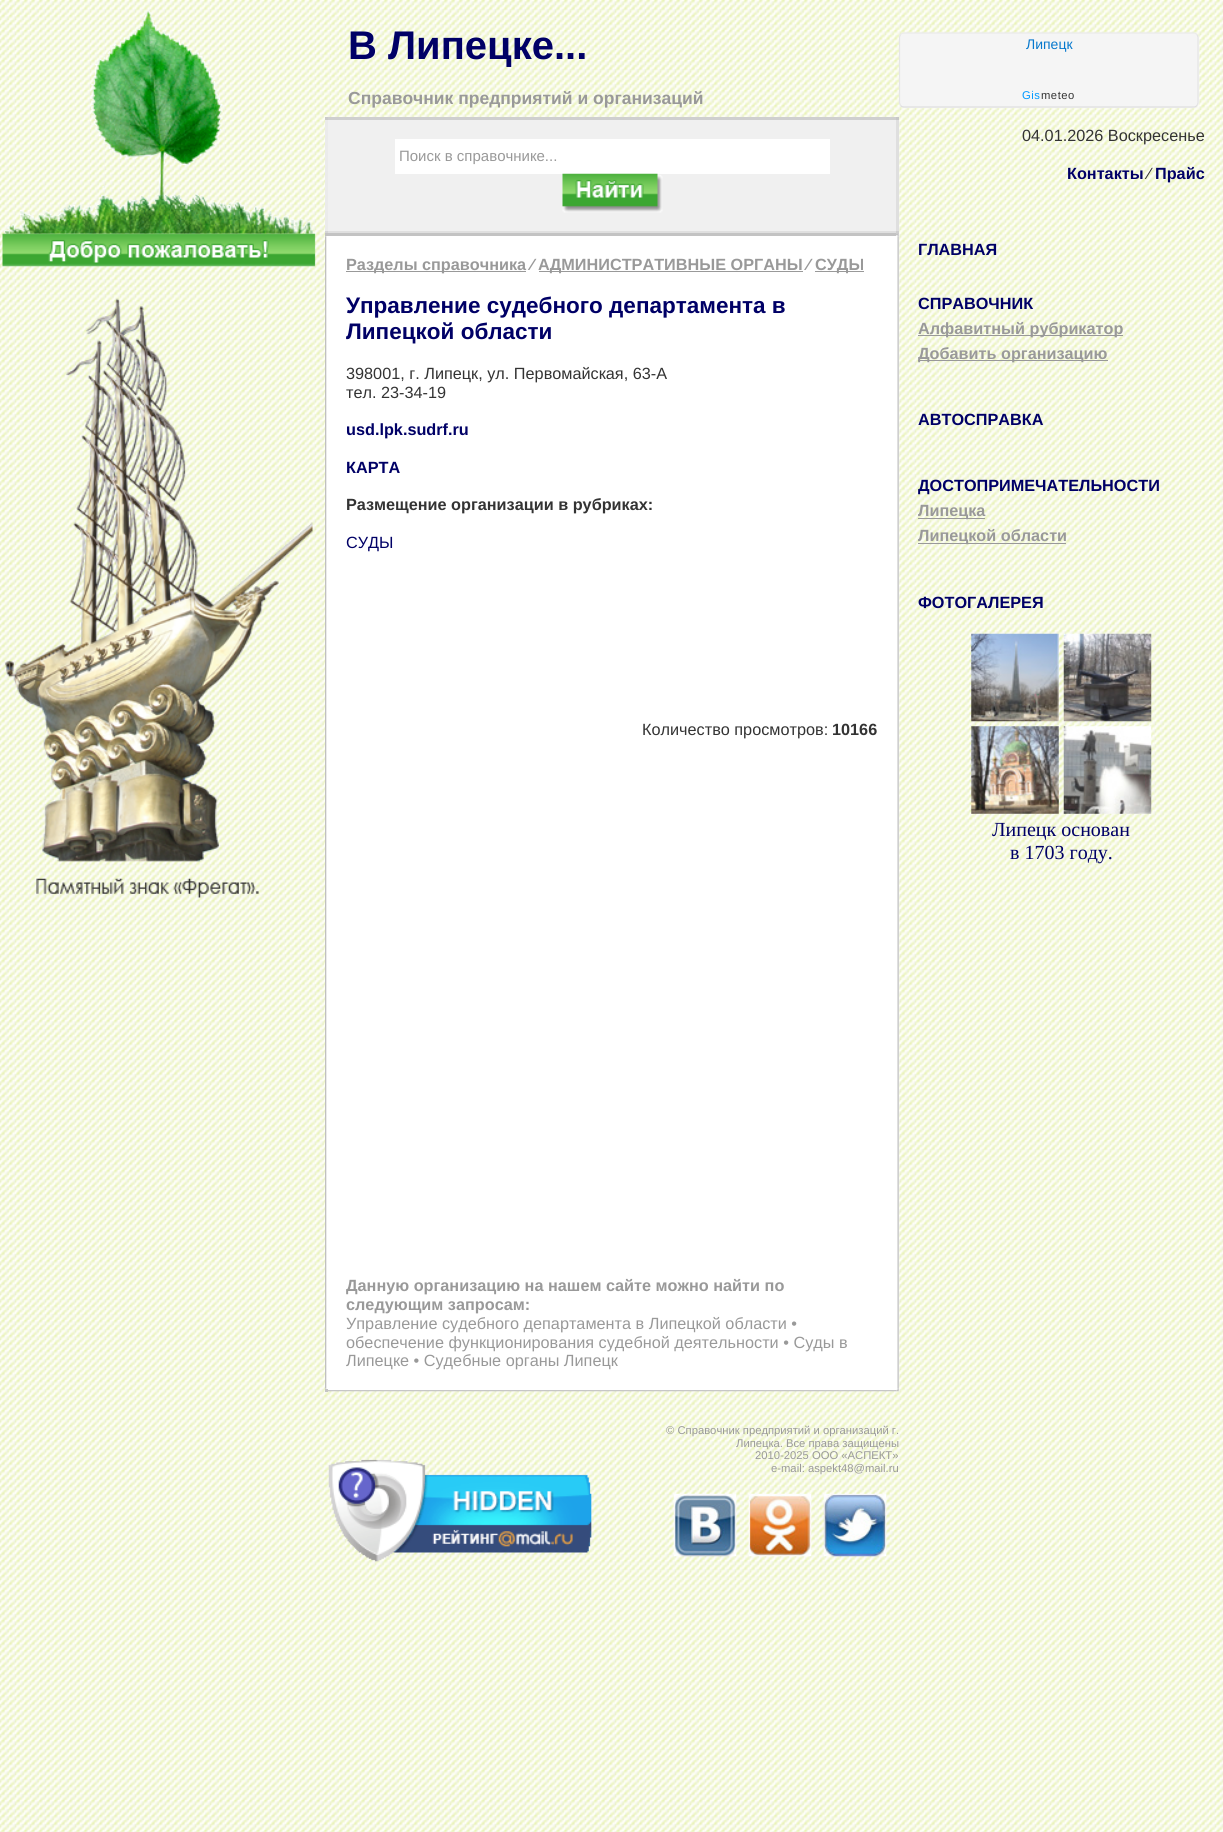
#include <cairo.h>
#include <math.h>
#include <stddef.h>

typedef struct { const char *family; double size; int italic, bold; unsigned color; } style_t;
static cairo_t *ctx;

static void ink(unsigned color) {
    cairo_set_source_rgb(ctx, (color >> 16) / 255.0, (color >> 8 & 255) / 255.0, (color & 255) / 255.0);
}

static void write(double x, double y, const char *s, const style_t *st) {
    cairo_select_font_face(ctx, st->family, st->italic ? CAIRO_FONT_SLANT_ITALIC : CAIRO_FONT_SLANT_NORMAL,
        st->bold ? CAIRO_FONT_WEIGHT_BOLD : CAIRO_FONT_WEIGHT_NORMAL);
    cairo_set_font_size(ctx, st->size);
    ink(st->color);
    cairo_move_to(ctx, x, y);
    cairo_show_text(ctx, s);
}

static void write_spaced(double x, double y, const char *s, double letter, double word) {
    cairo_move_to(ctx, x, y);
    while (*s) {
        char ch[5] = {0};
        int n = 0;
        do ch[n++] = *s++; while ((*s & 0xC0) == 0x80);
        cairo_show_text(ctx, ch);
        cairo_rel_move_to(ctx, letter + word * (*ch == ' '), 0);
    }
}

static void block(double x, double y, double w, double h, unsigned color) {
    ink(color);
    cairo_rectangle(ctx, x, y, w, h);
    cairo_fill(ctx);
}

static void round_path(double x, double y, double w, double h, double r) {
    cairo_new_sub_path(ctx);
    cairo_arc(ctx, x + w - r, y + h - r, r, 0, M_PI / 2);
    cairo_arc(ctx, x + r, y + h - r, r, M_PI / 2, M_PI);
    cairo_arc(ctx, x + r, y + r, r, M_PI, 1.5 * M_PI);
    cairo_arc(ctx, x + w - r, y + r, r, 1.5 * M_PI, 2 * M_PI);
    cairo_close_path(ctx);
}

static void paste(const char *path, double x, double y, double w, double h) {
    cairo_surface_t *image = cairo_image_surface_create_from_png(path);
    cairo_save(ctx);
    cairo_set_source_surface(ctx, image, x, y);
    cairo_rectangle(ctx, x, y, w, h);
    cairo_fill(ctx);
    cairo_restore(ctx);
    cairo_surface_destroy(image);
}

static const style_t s1 = {"Liberation Sans", 40, 0, 1, 0x000066};
static const style_t s2 = {"Liberation Sans", 17.5, 0, 1, 0x999999};
static const style_t s3 = {"Liberation Sans", 15, 0, 0, 0x999999};
static const style_t s4 = {"Liberation Sans", 14, 0, 0, 0x0678cd};
static const style_t s5 = {"Liberation Sans", 16.25, 0, 0, 0x333333};
static const style_t s6 = {"Liberation Sans", 16.25, 0, 1, 0x000066};
static const style_t s7 = {"Liberation Sans", 16.25, 0, 1, 0x999999};
static const style_t s8 = {"Liberation Sans", 22.5, 0, 1, 0x000066};
static const style_t s9 = {"Liberation Sans", 16.25, 0, 1, 0x333333};
static const style_t s10 = {"Liberation Sans", 16.25, 0, 0, 0x000066};
static const style_t s11 = {"Liberation Sans", 16.25, 0, 0, 0x999999};
static const style_t s12 = {"Liberation Serif", 20, 0, 0, 0x000066};
static const style_t s13 = {"Liberation Sans", 11.25, 0, 0, 0x999999};

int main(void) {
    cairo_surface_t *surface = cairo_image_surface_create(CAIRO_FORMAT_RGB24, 1223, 1832);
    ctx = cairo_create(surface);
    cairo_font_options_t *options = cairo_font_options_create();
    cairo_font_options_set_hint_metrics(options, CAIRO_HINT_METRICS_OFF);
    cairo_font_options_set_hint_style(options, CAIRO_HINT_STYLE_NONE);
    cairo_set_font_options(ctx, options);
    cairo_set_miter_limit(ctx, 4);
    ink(0xffffff);
    cairo_paint(ctx);
    paste("pic1.png", 0, 0, 1223, 1832);
    paste("pic2.png", 3, 11, 311, 223);
    write(348, 59, "В Липецке...", &s1);
    write(348, 104, "Cправочник предприятий и организаций", &s2);
    block(328, 120, 568, 111, 0xf0f0f0);
    block(327, 117, 570, 3, 0xcfcfcf);
    block(325, 117, 3, 3, 0xcacaca);
    block(896, 117, 3, 3, 0xc7c7c7);
    block(325, 120, 3, 112, 0xebebeb);
    block(395, 139, 435, 35, 0xffffff);
    write(399, 161, "Поиск в справочнике...", &s3);
    paste("pic3.png", 562, 173, 101, 40);
    block(896, 120, 3, 112, 0xdfdfdf);
    block(327, 231, 570, 2, 0xdfdfdf);
    block(325, 231, 3, 2, 0xd5d5d5);
    block(325, 234, 574, 1157, 0xffffff);
    block(327, 233, 570, 3, 0xc3c3c3);
    block(896, 231, 3, 3, 0xcfcfcf);
    ink(0xf5f5f5);
    round_path(899, 33, 300, 75, 5);
    cairo_fill(ctx);
    cairo_new_path(ctx);
    cairo_move_to(ctx, 900.5, 34.5);
    cairo_curve_to(ctx, 901.5, 33.5, 902.5, 33, 904, 33);
    cairo_line_to(ctx, 1194, 33);
    cairo_curve_to(ctx, 1195, 33, 1196, 33.5, 1197, 34.5);
    ink(0xeaeaea);
    cairo_set_line_width(ctx, 1.2);
    cairo_stroke(ctx);
    cairo_new_path(ctx);
    cairo_move_to(ctx, 1197, 34.5);
    cairo_line_to(ctx, 1198, 37);
    cairo_line_to(ctx, 1198, 103);
    cairo_line_to(ctx, 1197, 105.5);
    ink(0xe4e4e4);
    cairo_stroke(ctx);
    cairo_new_path(ctx);
    cairo_move_to(ctx, 1197, 105.5);
    cairo_curve_to(ctx, 1196, 106.5, 1195, 107, 1194, 107);
    cairo_line_to(ctx, 904, 107);
    cairo_curve_to(ctx, 902.5, 107, 901.5, 106.5, 900.5, 105.5);
    ink(0xdddddd);
    cairo_stroke(ctx);
    cairo_new_path(ctx);
    cairo_move_to(ctx, 900.5, 105.5);
    cairo_line_to(ctx, 899.5, 103);
    cairo_line_to(ctx, 899.5, 37);
    cairo_line_to(ctx, 900.5, 34.5);
    ink(0xe6e6e6);
    cairo_stroke(ctx);
    write(1026, 49, "Липецк", &s4);
    cairo_set_font_size(ctx, 11.25);
    ink(0x0099ff);
    write_spaced(1022, 99, "Gis", 0.5, 0);
    ink(0x333333);
    write_spaced(1041, 99, "meteo", 0.5, 0);
    write(1022, 141, "04.01.2026 Воскресенье", &s5);
    write(1067, 179, "Контакты", &s6);
    write(1148, 179, "⁄", &s5);
    write(1155, 179, "Прайс", &s6);
    paste("pic4.png", 2, 233, 314, 34);
    paste("pic5.png", 4, 298, 309, 600);
    block(325, 233, 3, 3, 0xc2c2c2);
    paste("pic8.png", 897, 236, 2, 1153);
    paste("pic6.png", 896, 233, 3, 4);
    paste("pic7.png", 325, 236, 2, 1153);
    block(346, 271, 180, 1, 0x999999);
    write(346, 270, "Разделы справочника ⁄", &s7);
    block(539, 271, 264, 1, 0x999999);
    write(538, 270, "АДМИНИСТРАТИВНЫЕ ОРГАНЫ ⁄", &s7);
    block(815, 271, 49, 1, 0x999999);
    write(815, 270, "СУДЫ", &s7);
    write(346, 313, "Управление судебного департамента в", &s8);
    write(346, 339, "Липецкой области", &s8);
    write(346, 379, "398001, г. Липецк, ул. Первомайская, 63-А", &s5);
    write(346, 398, "тел. 23-34-19", &s5);
    write(346, 435, "usd.lpk.sudrf.ru", &s6);
    write(346, 473, "КАРТА", &s6);
    write(346, 510, "Размещение организации в рубриках:", &s9);
    write(346, 548, "СУДЫ", &s10);
    write(642, 735, "Количество просмотров:", &s5);
    write(832, 735, "10166", &s9);
    write(346, 1291, "Данную организацию на нашем сайте можно найти по", &s7);
    write(346, 1310, "следующим запросам:", &s7);
    write(346, 1329, "Управление судебного департамента в Липецкой области •", &s11);
    write(346, 1348, "обеспечение функционирования судебной деятельности • Суды в", &s11);
    write(346, 1366, "Липецке • Судебные органы Липецк", &s11);
    block(325, 1389, 3, 3, 0xc5c5c5);
    paste("pic9.png", 328, 1390, 569, 2);
    paste("pic10.png", 896, 1388, 3, 4);
    write(918, 255, "ГЛАВНАЯ", &s6);
    write(918, 309, "СПРАВОЧНИК", &s6);
    block(918, 335, 205, 1, 0x999999);
    write(918, 334, "Алфавитный рубрикатор", &s7);
    block(918, 360, 190, 1, 0x999999);
    write(918, 359, "Добавить организацию", &s7);
    write(918, 425, "АВТОСПРАВКА", &s6);
    write(918, 491, "ДОСТОПРИМЕЧАТЕЛЬНОСТИ", &s6);
    block(918, 518, 67, 1, 0x999999);
    write(918, 516, "Липецка", &s7);
    block(918, 543, 148, 1, 0x999999);
    write(918, 541, "Липецкой области", &s7);
    write(918, 608, "ФОТОГАЛЕРЕЯ", &s6);
    paste("pic11.png", 971, 633, 88, 89);
    paste("pic12.png", 1063, 633, 89, 89);
    paste("pic13.png", 971, 726, 88, 88);
    paste("pic14.png", 1063, 726, 89, 88);
    write(992, 836, "Липецк основан", &s12);
    write(1010, 859, "в 1703 году.", &s12);
    write(666, 1434, "© Справочник предприятий и организаций г.", &s13);
    write(736, 1447, "Липецка. Все права защищены", &s13);
    write(755, 1459, "2010-2025 ООО «АСПЕКТ»", &s13);
    write(771, 1472, "e-mail: aspekt48@mail.ru", &s13);
    paste("pic15.png", 673, 1493, 64, 64);
    paste("pic16.png", 748, 1493, 64, 64);
    paste("pic17.png", 823, 1493, 64, 64);
    paste("pic18.png", 328, 1459, 264, 103);
    cairo_surface_write_to_png(surface, "screenshot.png");
    cairo_font_options_destroy(options);
    cairo_destroy(ctx);
    cairo_surface_destroy(surface);
    return 0;
}
